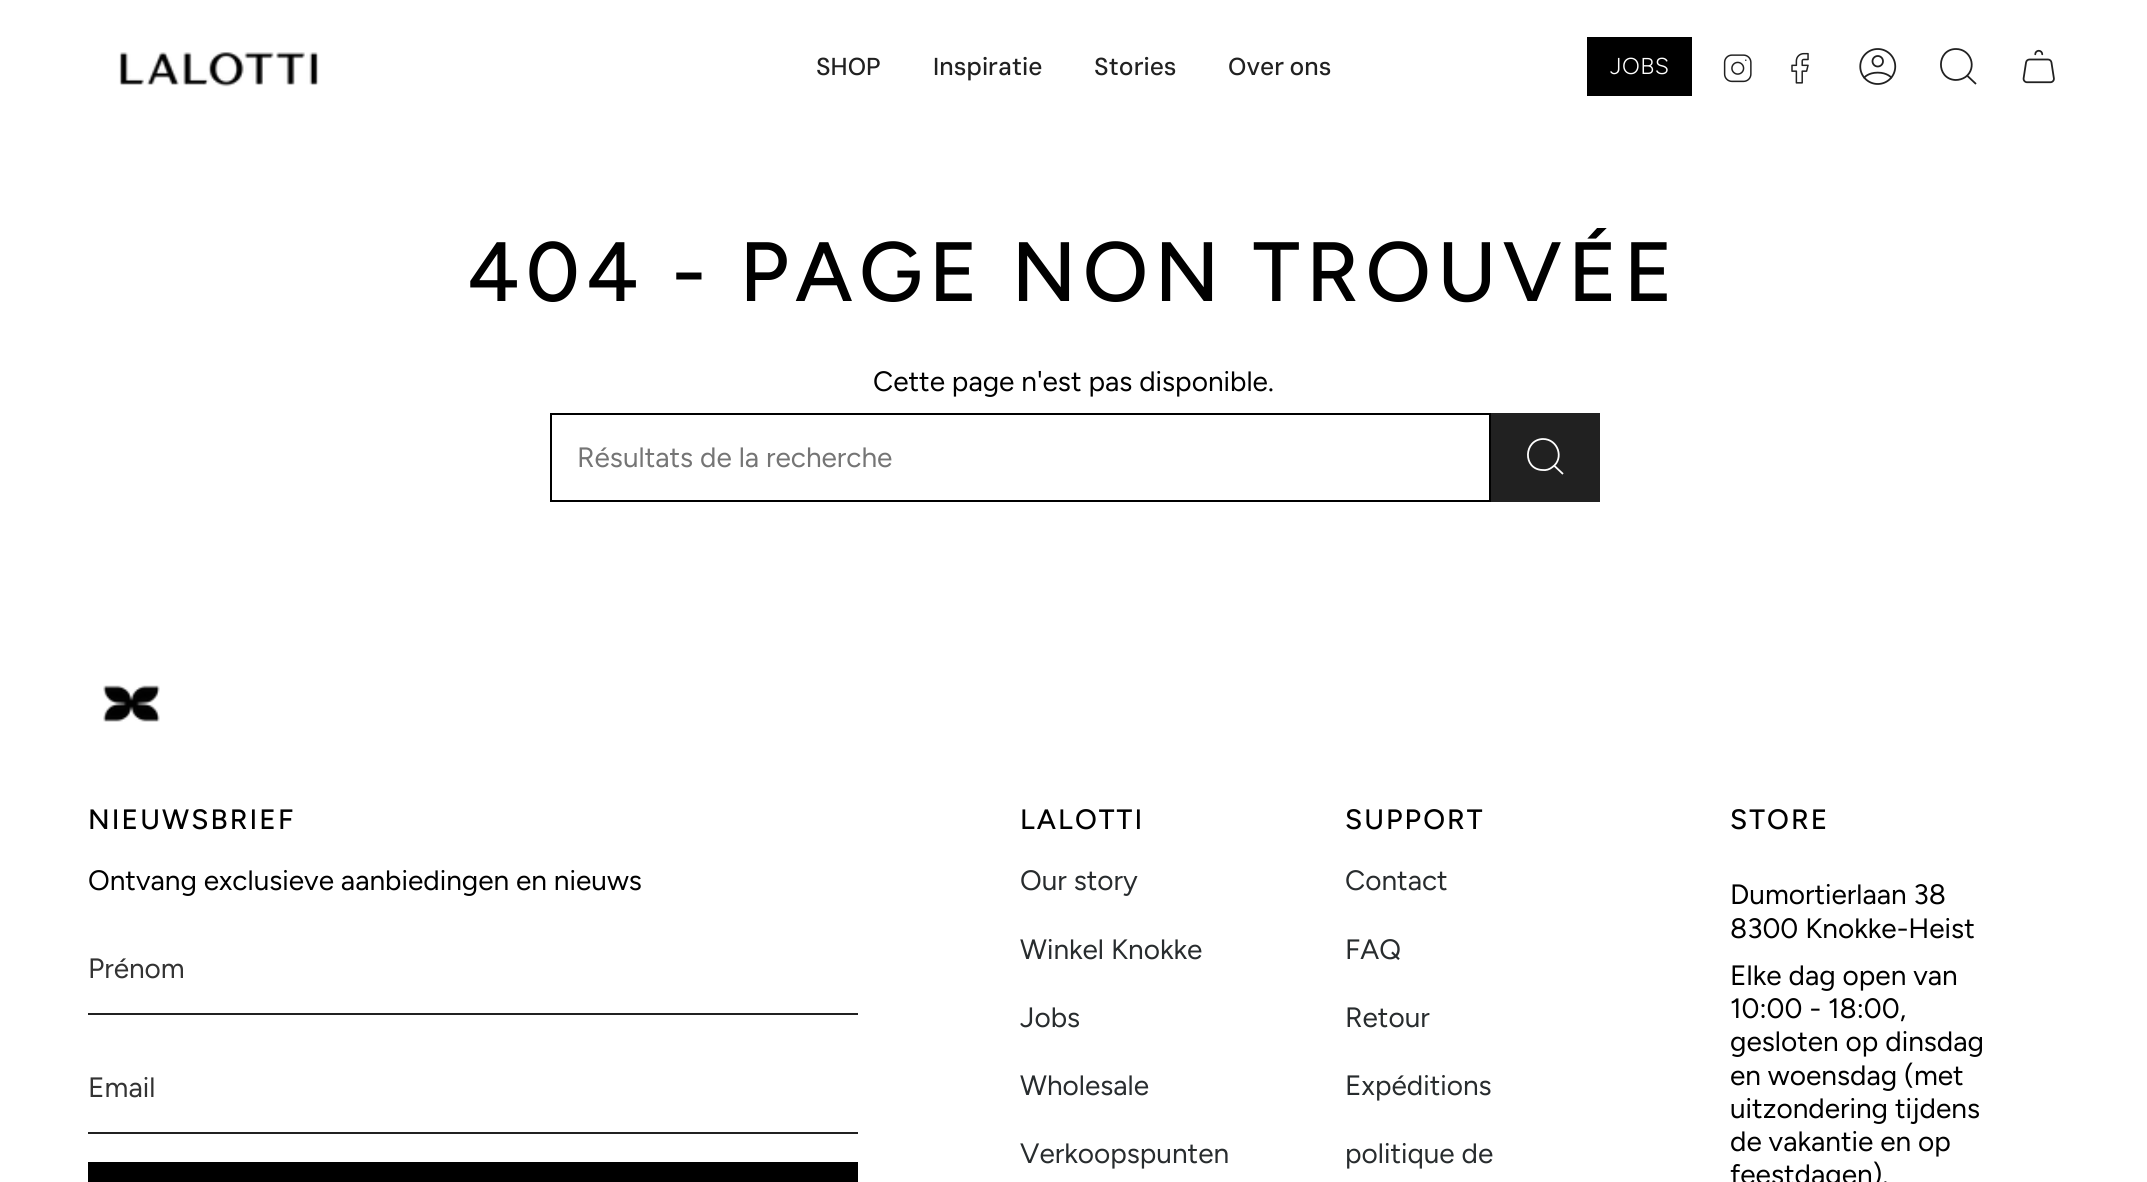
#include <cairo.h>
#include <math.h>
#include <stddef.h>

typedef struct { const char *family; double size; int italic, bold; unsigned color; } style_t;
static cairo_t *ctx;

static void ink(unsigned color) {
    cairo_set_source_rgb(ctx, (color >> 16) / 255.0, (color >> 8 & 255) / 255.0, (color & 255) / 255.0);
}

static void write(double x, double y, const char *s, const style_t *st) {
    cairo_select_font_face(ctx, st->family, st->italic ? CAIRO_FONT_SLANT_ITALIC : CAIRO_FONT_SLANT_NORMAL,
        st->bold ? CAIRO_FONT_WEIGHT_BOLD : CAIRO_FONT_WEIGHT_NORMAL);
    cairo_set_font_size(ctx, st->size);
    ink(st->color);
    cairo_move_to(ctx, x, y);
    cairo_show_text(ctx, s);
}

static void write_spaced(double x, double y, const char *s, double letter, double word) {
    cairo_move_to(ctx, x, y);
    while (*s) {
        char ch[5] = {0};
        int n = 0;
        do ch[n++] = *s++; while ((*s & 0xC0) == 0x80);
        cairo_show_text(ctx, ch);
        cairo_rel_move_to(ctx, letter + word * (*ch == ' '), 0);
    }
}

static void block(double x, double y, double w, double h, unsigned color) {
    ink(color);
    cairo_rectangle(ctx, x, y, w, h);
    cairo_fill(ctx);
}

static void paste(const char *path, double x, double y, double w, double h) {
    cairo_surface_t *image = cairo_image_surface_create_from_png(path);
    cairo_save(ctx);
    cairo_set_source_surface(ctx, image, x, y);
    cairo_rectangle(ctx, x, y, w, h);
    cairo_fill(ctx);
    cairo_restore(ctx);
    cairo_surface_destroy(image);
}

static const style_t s1 = {"DM Sans Medium", 24.5, 0, 0, 0x212121};
static const style_t s2 = {"Figtree", 28, 0, 0, 0x000000};
static const style_t s3 = {"Figtree", 28, 0, 0, 0x757575};
static const style_t s4 = {"Figtree", 28, 0, 0, 0x333333};
static const style_t s5 = {"Figtree", 28, 0, 0, 0x282c2e};

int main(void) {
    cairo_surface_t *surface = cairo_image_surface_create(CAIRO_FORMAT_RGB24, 2147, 1182);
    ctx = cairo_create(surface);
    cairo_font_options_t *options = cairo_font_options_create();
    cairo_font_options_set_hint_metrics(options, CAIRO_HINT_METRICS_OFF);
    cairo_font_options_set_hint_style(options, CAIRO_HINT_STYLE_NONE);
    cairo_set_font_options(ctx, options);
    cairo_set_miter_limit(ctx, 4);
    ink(0xffffff);
    cairo_paint(ctx);
    paste("pic1.png", 119, 52, 200, 35);
    write(816, 75, "SHOP", &s1);
    write(933, 75, "Inspiratie", &s1);
    write(1094, 75, "Stories", &s1);
    write_spaced(1228, 75, "Over ons", 0, -1);
    block(1587, 37, 105, 59, 0x000000);
    cairo_select_font_face(ctx, "Figtree Light", CAIRO_FONT_SLANT_NORMAL, CAIRO_FONT_WEIGHT_NORMAL);
    cairo_set_font_size(ctx, 23);
    ink(0xffffff);
    write_spaced(1610, 74, "JOBS", 0.5, 0);
    paste("pic2.png", 1723, 54, 29, 29);
    paste("pic3.png", 1791, 52, 18, 32);
    paste("pic4.png", 1859, 48, 38, 37);
    cairo_new_path(ctx);
    cairo_move_to(ctx, 1956, 49);
    cairo_curve_to(ctx, 1971, 49, 1977.5, 68, 1965.5, 77);
    cairo_curve_to(ctx, 1962.5, 79, 1959, 80, 1955.5, 80);
    cairo_curve_to(ctx, 1935.5, 79, 1936.5, 49, 1956, 49);
    cairo_close_path(ctx);
    cairo_move_to(ctx, 1967, 75.5);
    cairo_line_to(ctx, 1976, 84);
    ink(0x212121);
    cairo_set_line_width(ctx, 1.8);
    cairo_stroke(ctx);
    paste("pic5.png", 2022, 49, 33, 35);
    cairo_select_font_face(ctx, "Figtree Medium", CAIRO_FONT_SLANT_NORMAL, CAIRO_FONT_WEIGHT_NORMAL);
    cairo_set_font_size(ctx, 84);
    ink(0x000000);
    write_spaced(467, 301, "404 - PAGE NON TROUVÉE", 6.3, 0);
    write(873, 391, "Cette page n'est pas disponible.", &s2);
    cairo_rectangle(ctx, 551, 414, 939, 87);
    cairo_set_line_width(ctx, 2);
    cairo_stroke(ctx);
    write(577, 467, "Résultats de la recherche", &s3);
    block(1491, 413, 109, 89, 0x212121);
    cairo_new_path(ctx);
    cairo_move_to(ctx, 1543, 439);
    cairo_curve_to(ctx, 1558, 439, 1564.5, 458.5, 1552.5, 467);
    cairo_curve_to(ctx, 1549.5, 469.5, 1546, 470.5, 1542.5, 470);
    cairo_curve_to(ctx, 1522.5, 469.5, 1523.5, 439.5, 1543, 439);
    cairo_close_path(ctx);
    cairo_move_to(ctx, 1554, 465.5);
    cairo_line_to(ctx, 1563, 474);
    ink(0xffffff);
    cairo_set_line_width(ctx, 1.8);
    cairo_stroke(ctx);
    paste("pic6.png", 103, 685, 57, 37);
    cairo_select_font_face(ctx, "Figtree Medium", CAIRO_FONT_SLANT_NORMAL, CAIRO_FONT_WEIGHT_NORMAL);
    ink(0x000000);
    write_spaced(88, 829, "NIEUWSBRIEF", 2.1, 0);
    write(88, 890, "Ontvang exclusieve aanbiedingen en nieuws", &s2);
    block(88, 1013, 770, 2, 0x212121);
    write(88, 978, "Prénom", &s4);
    block(88, 1132, 770, 2, 0x212121);
    write(88, 1097, "Email", &s4);
    block(88, 1162, 770, 20, 0x000000);
    cairo_select_font_face(ctx, "Figtree Medium", CAIRO_FONT_SLANT_NORMAL, CAIRO_FONT_WEIGHT_NORMAL);
    write_spaced(1020, 829, "LALOTTI", 2.1, 0);
    write(1020, 890, "Our story", &s5);
    write(1020, 959, "Winkel Knokke", &s5);
    write(1020, 1027, "Jobs", &s5);
    write(1020, 1095, "Wholesale", &s5);
    write(1020, 1163, "Verkoopspunten", &s5);
    cairo_select_font_face(ctx, "Figtree Medium", CAIRO_FONT_SLANT_NORMAL, CAIRO_FONT_WEIGHT_NORMAL);
    ink(0x000000);
    write_spaced(1345, 829, "SUPPORT", 2.1, 0);
    write(1345, 890, "Contact", &s5);
    write(1345, 959, "FAQ", &s5);
    write(1345, 1027, "Retour", &s5);
    write(1345, 1095, "Expéditions", &s5);
    write(1345, 1163, "politique de", &s5);
    cairo_select_font_face(ctx, "Figtree Medium", CAIRO_FONT_SLANT_NORMAL, CAIRO_FONT_WEIGHT_NORMAL);
    ink(0x000000);
    write_spaced(1730, 829, "STORE", 2.1, 0);
    write(1730, 904, "Dumortierlaan 38", &s2);
    write(1730, 938, "8300 Knokke-Heist", &s2);
    write(1730, 985, "Elke dag open van", &s2);
    write(1730, 1018, "10:00 - 18:00,", &s2);
    write(1730, 1051, "gesloten op dinsdag", &s2);
    write(1730, 1085, "en woensdag (met", &s2);
    write(1730, 1118, "uitzondering tijdens", &s2);
    write(1730, 1151, "de vakantie en op", &s2);
    write(1730, 1184, "feestdagen).", &s2);
    cairo_surface_write_to_png(surface, "screenshot.png");
    cairo_font_options_destroy(options);
    cairo_destroy(ctx);
    cairo_surface_destroy(surface);
    return 0;
}
